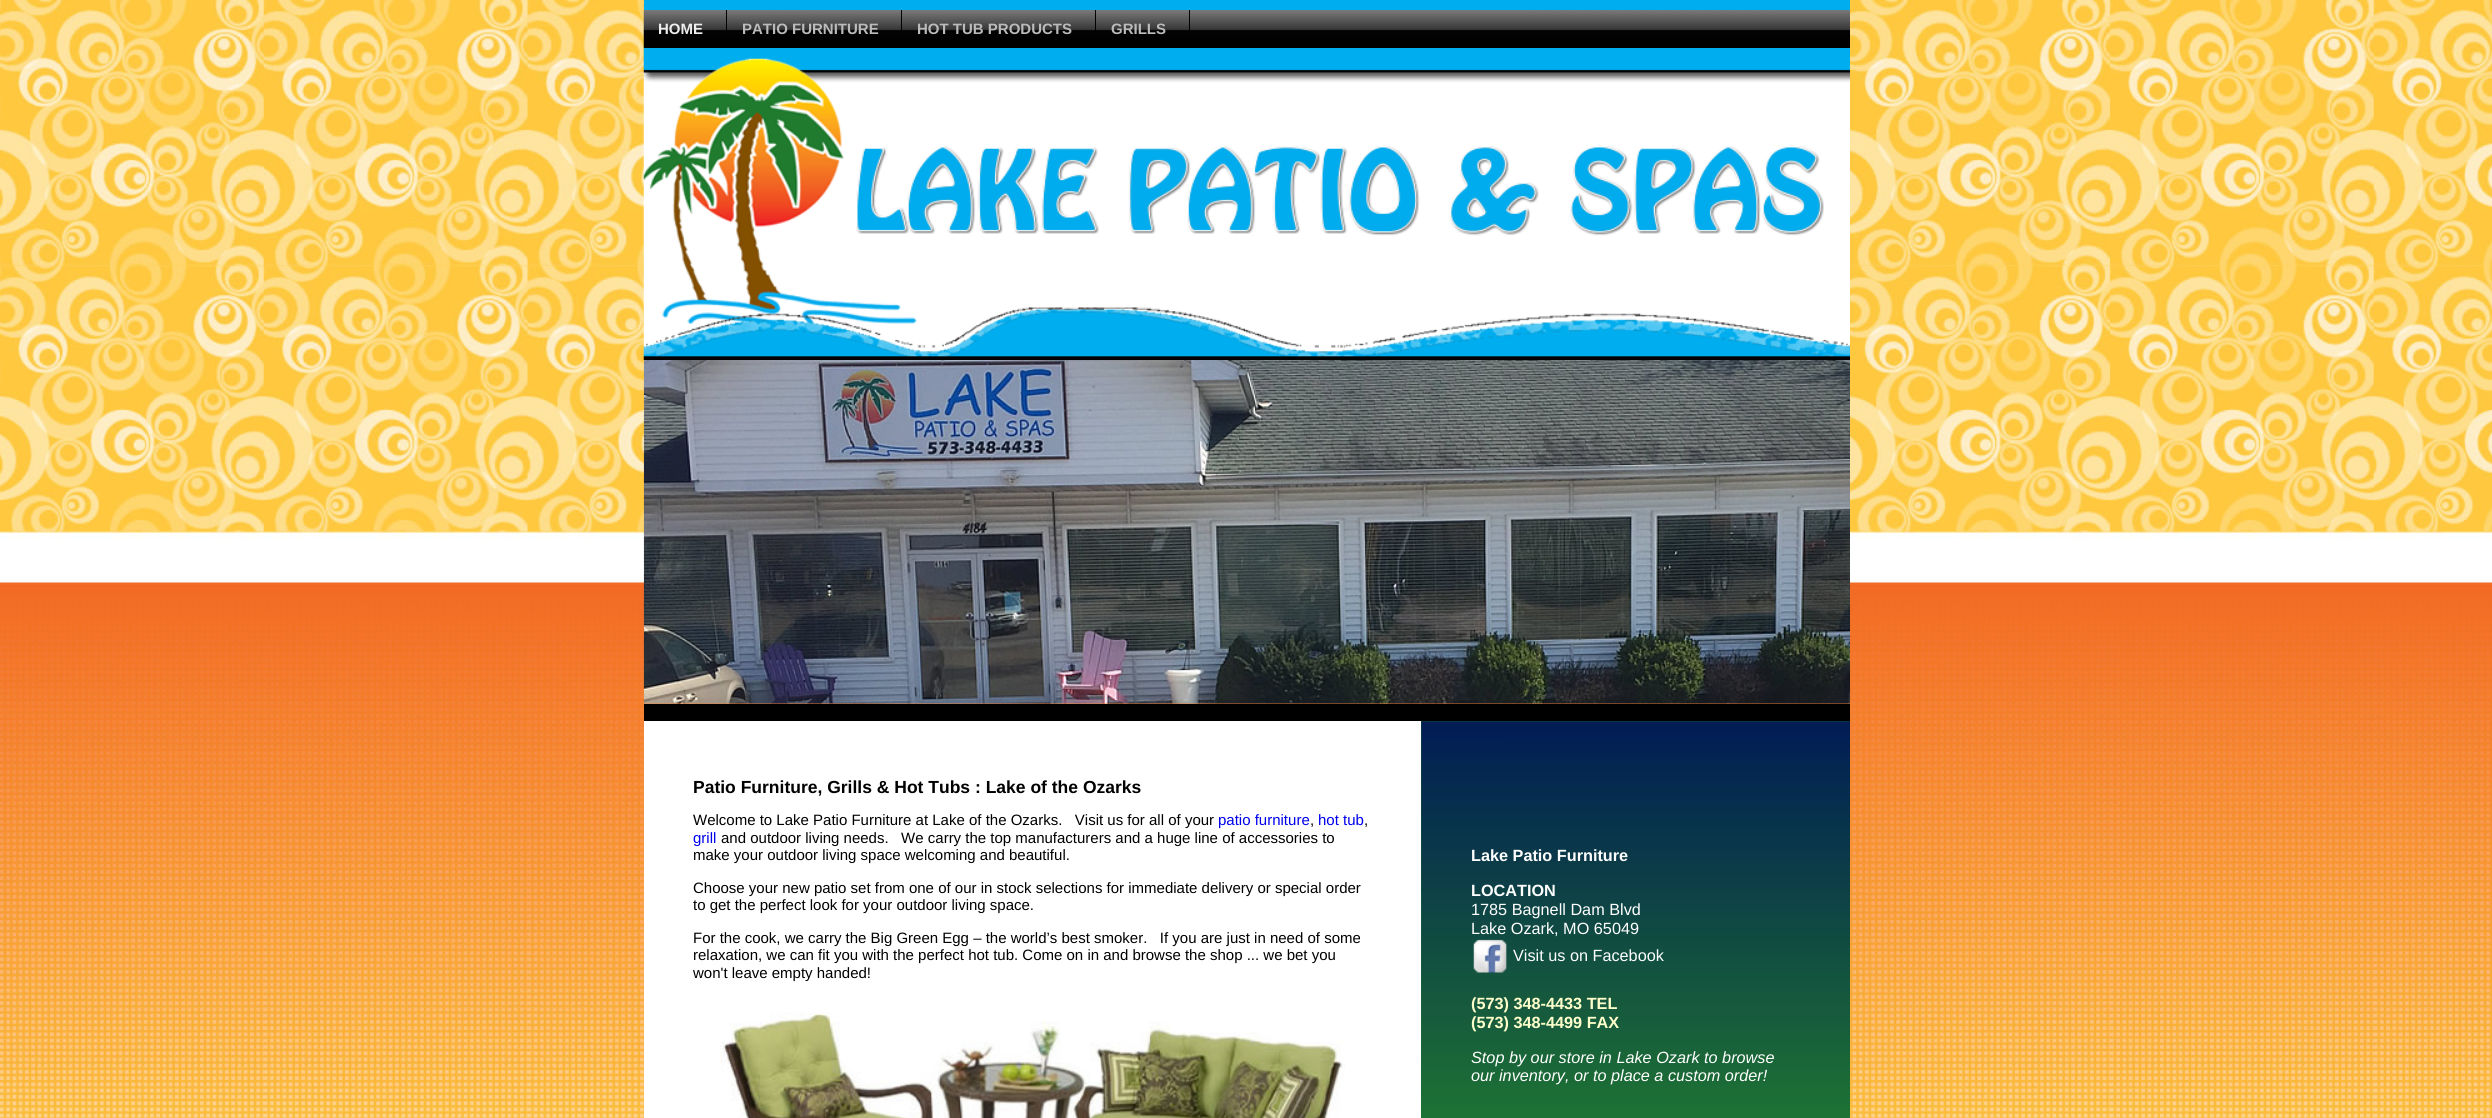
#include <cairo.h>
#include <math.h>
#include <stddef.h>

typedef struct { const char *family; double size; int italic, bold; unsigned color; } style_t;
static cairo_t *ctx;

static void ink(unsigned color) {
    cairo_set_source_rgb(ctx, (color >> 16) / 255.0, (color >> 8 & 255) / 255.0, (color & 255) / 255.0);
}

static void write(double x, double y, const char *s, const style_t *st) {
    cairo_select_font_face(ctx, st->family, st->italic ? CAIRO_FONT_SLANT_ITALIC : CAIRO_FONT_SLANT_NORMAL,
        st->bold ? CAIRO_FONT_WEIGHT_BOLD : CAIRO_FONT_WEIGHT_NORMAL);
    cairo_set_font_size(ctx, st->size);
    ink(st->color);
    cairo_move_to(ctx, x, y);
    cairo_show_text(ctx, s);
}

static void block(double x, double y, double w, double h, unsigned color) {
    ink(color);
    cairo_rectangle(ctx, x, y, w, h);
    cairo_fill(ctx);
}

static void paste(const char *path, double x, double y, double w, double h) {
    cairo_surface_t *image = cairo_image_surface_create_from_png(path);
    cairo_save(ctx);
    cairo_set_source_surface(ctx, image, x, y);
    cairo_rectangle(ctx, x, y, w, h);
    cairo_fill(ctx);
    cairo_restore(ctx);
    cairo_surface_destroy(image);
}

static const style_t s1 = {"Liberation Sans", 15, 0, 1, 0xeeeeee};
static const style_t s2 = {"Liberation Sans", 15, 0, 1, 0xbbbbbb};
static const style_t s3 = {"Liberation Sans", 17.5, 0, 1, 0x000000};
static const style_t s4 = {"Liberation Sans", 15, 0, 0, 0x000000};
static const style_t s5 = {"Liberation Sans", 15, 0, 0, 0x0000ee};
static const style_t s6 = {"Liberation Sans", 16.25, 0, 1, 0xffffff};
static const style_t s7 = {"Liberation Sans", 16.25, 0, 0, 0xffffff};
static const style_t s8 = {"Liberation Sans", 16.25, 0, 1, 0xffffcc};
static const style_t s9 = {"Liberation Sans", 16.25, 1, 0, 0xffffff};

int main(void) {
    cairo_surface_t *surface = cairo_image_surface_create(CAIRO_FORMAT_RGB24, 2492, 1118);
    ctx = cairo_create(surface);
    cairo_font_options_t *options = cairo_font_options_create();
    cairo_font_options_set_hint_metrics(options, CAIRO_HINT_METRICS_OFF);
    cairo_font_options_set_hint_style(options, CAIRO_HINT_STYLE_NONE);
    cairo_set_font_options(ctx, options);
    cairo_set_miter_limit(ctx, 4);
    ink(0xffffff);
    cairo_paint(ctx);
    paste("pic1.png", 0, 0, 2492, 1118);
    block(644, 0, 1206, 10, 0x00adee);
    paste("pic2.png", 643, 5, 1, 2);
    paste("pic4.png", 643, 47, 1207, 313);
    block(644, 47, 1206, 1, 0x000000);
    paste("pic3.png", 643, 10, 1207, 38);
    block(726, 10, 1, 21, 0x000000);
    write(658, 34, "HOME", &s1);
    block(901, 10, 1, 21, 0x000000);
    write(742, 34, "PATIO FURNITURE", &s2);
    block(1095, 10, 1, 21, 0x000000);
    write(917, 34, "HOT TUB PRODUCTS", &s2);
    block(1189, 10, 1, 21, 0x000000);
    write(1111, 34, "GRILLS", &s2);
    paste("pic5.png", 643, 360, 1207, 344);
    block(644, 704, 1206, 17, 0x000000);
    block(644, 721, 777, 397, 0xffffff);
    write(693, 793, "Patio Furniture, Grills & Hot Tubs : Lake of the Ozarks", &s3);
    write(693, 825, "Welcome to Lake Patio Furniture at Lake of the Ozarks.   Visit us for all of your", &s4);
    write(1218, 825, "patio furniture", &s5);
    write(1310, 825, ",", &s4);
    write(1318, 825, "hot tub", &s5);
    write(1364, 825, ",", &s4);
    write(693, 843, "grill", &s5);
    write(721, 843, "and outdoor living needs.   We carry the top manufacturers and a huge line of accessories to", &s4);
    write(693, 860, "make your outdoor living space welcoming and beautiful.", &s4);
    write(693, 893, "Choose your new patio set from one of our in stock selections for immediate delivery or special order", &s4);
    write(693, 910, "to get the perfect look for your outdoor living space.", &s4);
    write(693, 943, "For the cook, we carry the Big Green Egg – the world’s best smoker.   If you are just in need of some", &s4);
    write(693, 960, "relaxation, we can fit you with the perfect hot tub. Come on in and browse the shop ... we bet you", &s4);
    write(693, 978, "won't leave empty handed!", &s4);
    block(1421, 721, 429, 397, 0x207b2f);
    paste("pic6.png", 1421, 721, 429, 397);
    write(1471, 861, "Lake Patio Furniture", &s6);
    write(1471, 896, "LOCATION", &s6);
    write(1471, 915, "1785 Bagnell Dam Blvd", &s7);
    write(1471, 934, "Lake Ozark, MO 65049", &s7);
    paste("pic7.png", 1473, 939, 34, 34);
    write(1513, 961, "Visit us on Facebook", &s7);
    write(1471, 1009, "(573) 348-4433 TEL", &s8);
    write(1471, 1028, "(573) 348-4499 FAX", &s8);
    write(1471, 1063, "Stop by our store in Lake Ozark to browse", &s9);
    write(1471, 1081, "our inventory, or to place a custom order!", &s9);
    paste("pic8.png", 720, 1012, 625, 106);
    cairo_surface_write_to_png(surface, "screenshot.png");
    cairo_font_options_destroy(options);
    cairo_destroy(ctx);
    cairo_surface_destroy(surface);
    return 0;
}
